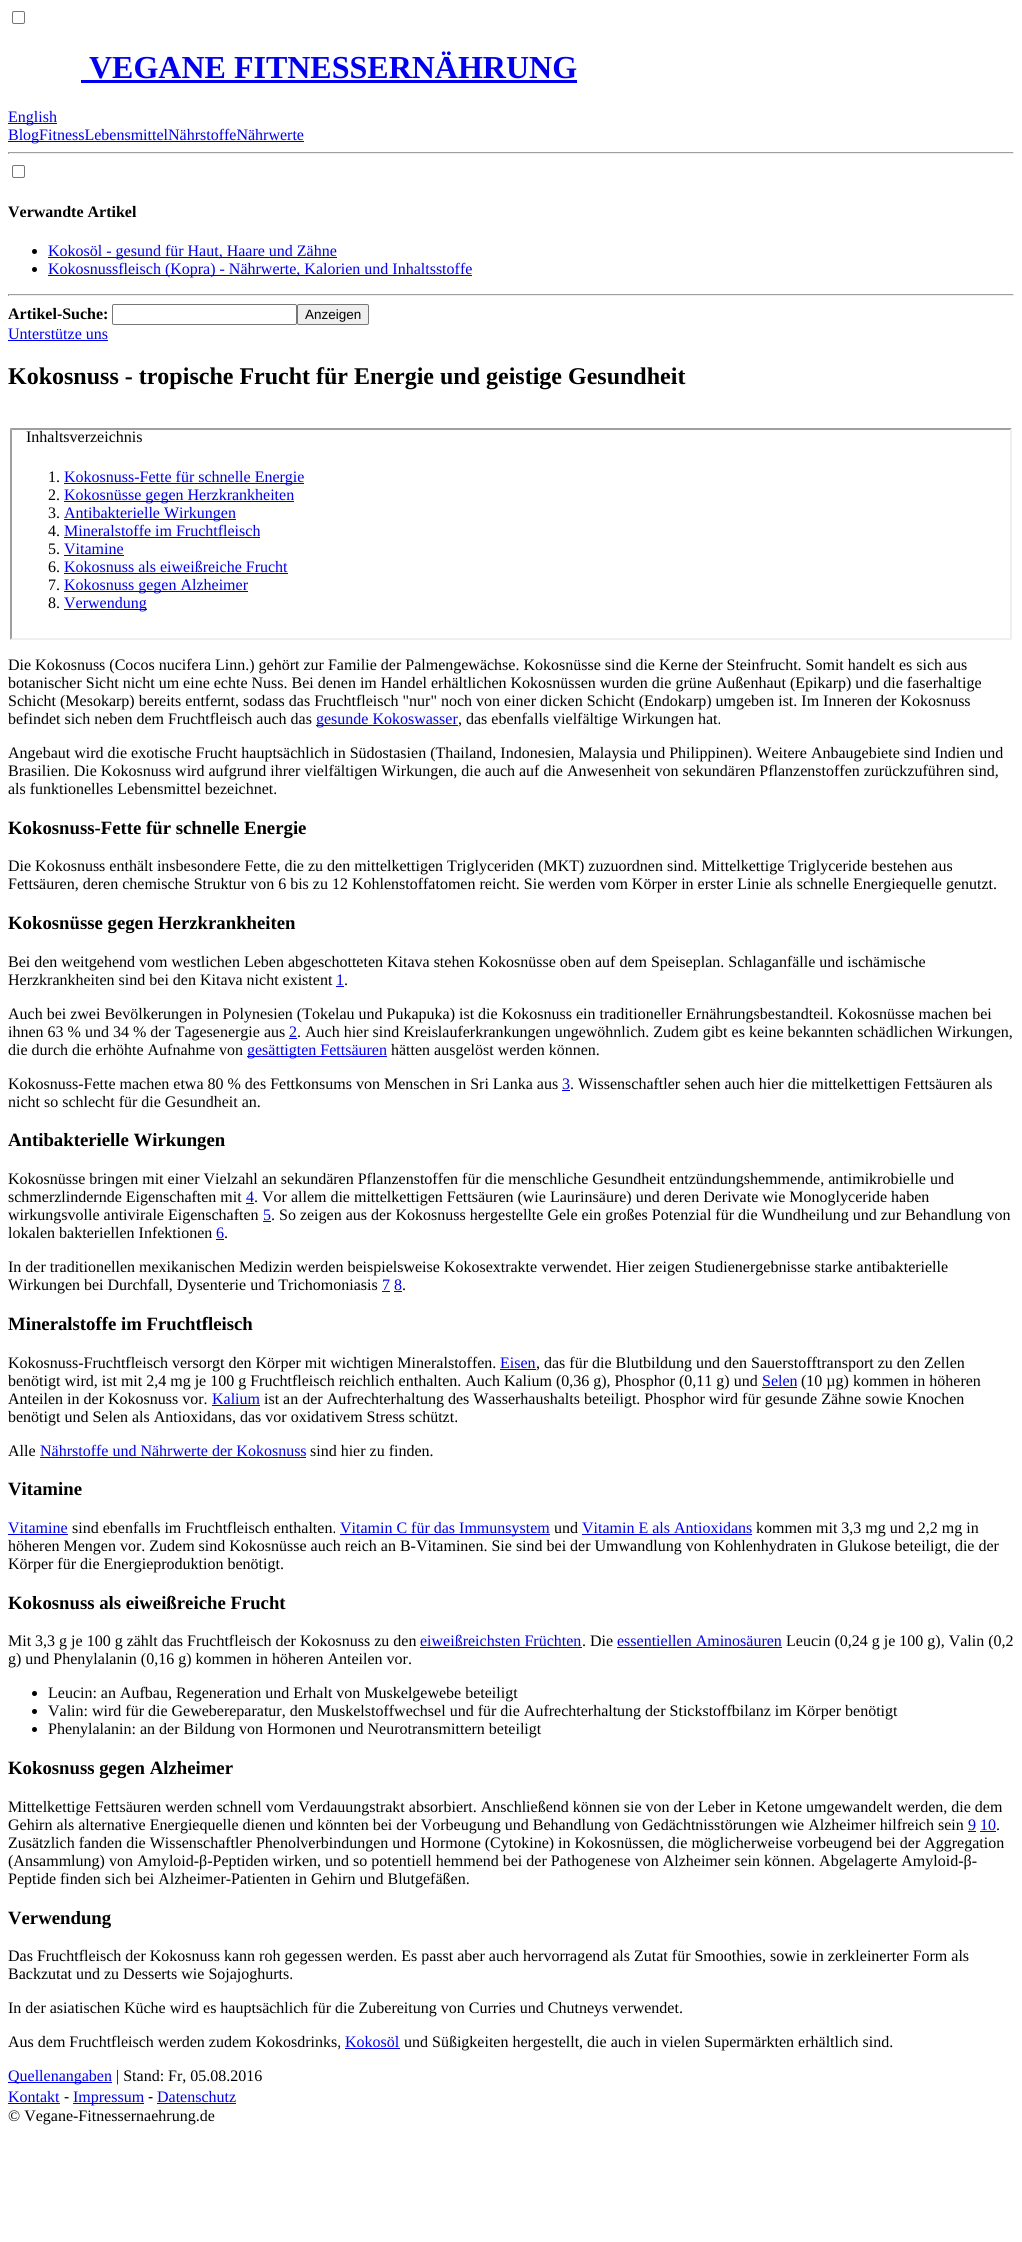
#include <cairo.h>
#include <math.h>
#include <stddef.h>

typedef struct { const char *family; double size; int italic, bold; unsigned color; } style_t;
static cairo_t *ctx;

static void ink(unsigned color) {
    cairo_set_source_rgb(ctx, (color >> 16) / 255.0, (color >> 8 & 255) / 255.0, (color & 255) / 255.0);
}

static void write(double x, double y, const char *s, const style_t *st) {
    cairo_select_font_face(ctx, st->family, st->italic ? CAIRO_FONT_SLANT_ITALIC : CAIRO_FONT_SLANT_NORMAL,
        st->bold ? CAIRO_FONT_WEIGHT_BOLD : CAIRO_FONT_WEIGHT_NORMAL);
    cairo_set_font_size(ctx, st->size);
    ink(st->color);
    cairo_move_to(ctx, x, y);
    cairo_show_text(ctx, s);
}

static void block(double x, double y, double w, double h, unsigned color) {
    ink(color);
    cairo_rectangle(ctx, x, y, w, h);
    cairo_fill(ctx);
}

static void round_path(double x, double y, double w, double h, double r) {
    cairo_new_sub_path(ctx);
    cairo_arc(ctx, x + w - r, y + h - r, r, 0, M_PI / 2);
    cairo_arc(ctx, x + r, y + h - r, r, M_PI / 2, M_PI);
    cairo_arc(ctx, x + r, y + r, r, M_PI, 1.5 * M_PI);
    cairo_arc(ctx, x + w - r, y + r, r, 1.5 * M_PI, 2 * M_PI);
    cairo_close_path(ctx);
}

static const style_t s1 = {"Liberation Serif", 32, 0, 1, 0x0000ee};
static const style_t s2 = {"Liberation Serif", 16, 0, 0, 0x0000ee};
static const style_t s3 = {"Liberation Serif", 16, 0, 1, 0x000000};
static const style_t s4 = {"Liberation Sans", 13.5, 0, 0, 0x000000};
static const style_t s5 = {"Liberation Serif", 24, 0, 1, 0x000000};
static const style_t s6 = {"Liberation Serif", 16, 0, 0, 0x000000};
static const style_t s7 = {"Liberation Serif", 18.75, 0, 1, 0x000000};
static const style_t s8 = {"Noto Sans", 16, 0, 0, 0x000000};

int main(void) {
    cairo_surface_t *surface = cairo_image_surface_create(CAIRO_FORMAT_RGB24, 1022, 2242);
    ctx = cairo_create(surface);
    cairo_font_options_t *options = cairo_font_options_create();
    cairo_font_options_set_hint_metrics(options, CAIRO_HINT_METRICS_OFF);
    cairo_font_options_set_hint_style(options, CAIRO_HINT_STYLE_NONE);
    cairo_set_font_options(ctx, options);
    cairo_set_miter_limit(ctx, 4);
    ink(0xffffff);
    cairo_paint(ctx);
    round_path(12.5, 11.5, 12, 12, 1.5);
    ink(0x767676);
    cairo_set_line_width(ctx, 1);
    cairo_stroke(ctx);
    write(89, 78, "VEGANE FITNESSERNÄHRUNG", &s1);
    block(81, 80, 496, 3, 0x0000ee);
    block(8, 123, 49, 1, 0x0000ee);
    write(8, 122, "English", &s2);
    block(8, 141, 296, 1, 0x0000ee);
    write(8, 140, "BlogFitnessLebensmittelNährstoffeNährwerte", &s2);
    block(8, 152, 1006, 1, 0x9f9f9f);
    block(1013, 152, 1, 2, 0xeeeeee);
    block(8, 153, 1006, 1, 0xeeeeee);
    block(8, 152, 1, 2, 0x9f9f9f);
    round_path(12.5, 165.5, 12, 12, 1.5);
    ink(0x767676);
    cairo_stroke(ctx);
    write(8, 217, "Verwandte Artikel", &s3);
    cairo_new_path(ctx);
    cairo_arc(ctx, 34.5, 251.5, 2.5, 0, 2 * M_PI);
    cairo_fill(ctx);
    block(48, 257, 289, 1, 0x0000ee);
    write(48, 256, "Kokosöl - gesund für Haut, Haare und Zähne", &s2);
    ink(0x000000);
    cairo_new_path(ctx);
    cairo_arc(ctx, 34.5, 269.5, 2.5, 0, 2 * M_PI);
    cairo_fill(ctx);
    block(48, 275, 424, 1, 0x0000ee);
    write(48, 274, "Kokosnussfleisch (Kopra) - Nährwerte, Kalorien und Inhaltsstoffe", &s2);
    block(8, 294, 1006, 1, 0x9f9f9f);
    block(1013, 294, 1, 2, 0xeeeeee);
    block(8, 295, 1006, 1, 0xeeeeee);
    block(8, 294, 1, 2, 0x9f9f9f);
    write(8, 319, "Artikel-Suche:", &s3);
    round_path(112.5, 304.5, 184, 20, 1.5);
    ink(0x767676);
    cairo_stroke(ctx);
    ink(0xefefef);
    round_path(297.5, 304.5, 71, 20, 1.5);
    cairo_fill_preserve(ctx);
    ink(0x767676);
    cairo_stroke(ctx);
    write(305, 319, "Anzeigen", &s4);
    write(8, 339, "Unterstütze uns", &s2);
    block(8, 340, 100, 1, 0x0000ee);
    write(8, 384, "Kokosnuss - tropische Frucht für Energie und geistige Gesundheit", &s5);
    ink(0x9f9f9f);
    cairo_new_path(ctx);
    cairo_move_to(ctx, 10, 428);
    cairo_line_to(ctx, 1012, 428);
    cairo_line_to(ctx, 1010, 430);
    cairo_line_to(ctx, 12, 430);
    cairo_close_path(ctx);
    cairo_fill(ctx);
    ink(0xefefef);
    cairo_new_path(ctx);
    cairo_move_to(ctx, 1012, 428);
    cairo_line_to(ctx, 1012, 640);
    cairo_line_to(ctx, 1010, 638);
    cairo_line_to(ctx, 1010, 430);
    cairo_close_path(ctx);
    cairo_fill(ctx);
    cairo_new_path(ctx);
    cairo_move_to(ctx, 1012, 640);
    cairo_line_to(ctx, 10, 640);
    cairo_line_to(ctx, 12, 638);
    cairo_line_to(ctx, 1010, 638);
    cairo_close_path(ctx);
    cairo_fill(ctx);
    ink(0x9f9f9f);
    cairo_new_path(ctx);
    cairo_move_to(ctx, 10, 640);
    cairo_line_to(ctx, 10, 428);
    cairo_line_to(ctx, 12, 430);
    cairo_line_to(ctx, 12, 638);
    cairo_close_path(ctx);
    cairo_fill(ctx);
    write(26, 442, "Inhaltsverzeichnis", &s6);
    write(48, 482, "1.", &s6);
    block(64, 483, 240, 1, 0x0000ee);
    write(64, 482, "Kokosnuss-Fette für schnelle Energie", &s2);
    write(48, 500, "2.", &s6);
    block(64, 501, 230, 1, 0x0000ee);
    write(64, 500, "Kokosnüsse gegen Herzkrankheiten", &s2);
    write(48, 518, "3.", &s6);
    block(64, 519, 172, 1, 0x0000ee);
    write(64, 518, "Antibakterielle Wirkungen", &s2);
    write(48, 536, "4.", &s6);
    write(64, 536, "Mineralstoffe im Fruchtfleisch", &s2);
    block(64, 537, 196, 1, 0x0000ee);
    write(48, 554, "5.", &s6);
    write(64, 554, "Vitamine", &s2);
    block(64, 555, 60, 1, 0x0000ee);
    write(48, 572, "6.", &s6);
    write(64, 572, "Kokosnuss als eiweißreiche Frucht", &s2);
    block(64, 573, 224, 1, 0x0000ee);
    write(48, 590, "7.", &s6);
    block(64, 591, 184, 1, 0x0000ee);
    write(64, 590, "Kokosnuss gegen Alzheimer", &s2);
    write(48, 608, "8.", &s6);
    block(64, 609, 83, 1, 0x0000ee);
    write(64, 608, "Verwendung", &s2);
    write(8, 670, "Die Kokosnuss (Cocos nucifera Linn.) gehört zur Familie der Palmengewächse. Kokosnüsse sind die Kerne der Steinfrucht. Somit handelt es sich aus", &s6);
    write(8, 688, "botanischer Sicht nicht um eine echte Nuss. Bei denen im Handel erhältlichen Kokosnüssen wurden die grüne Außenhaut (Epikarp) und die faserhaltige", &s6);
    write(8, 706, "Schicht (Mesokarp) bereits entfernt, sodass das Fruchtfleisch \"nur\" noch von einer dicken Schicht (Endokarp) umgeben ist. Im Inneren der Kokosnuss", &s6);
    write(8, 724, "befindet sich neben dem Fruchtfleisch auch das", &s6);
    block(316, 725, 142, 1, 0x0000ee);
    write(316, 724, "gesunde Kokoswasser", &s2);
    write(458, 724, ", das ebenfalls vielfältige Wirkungen hat.", &s6);
    write(8, 758, "Angebaut wird die exotische Frucht hauptsächlich in Südostasien (Thailand, Indonesien, Malaysia und Philippinen). Weitere Anbaugebiete sind Indien und", &s6);
    write(8, 776, "Brasilien. Die Kokosnuss wird aufgrund ihrer vielfältigen Wirkungen, die auch auf die Anwesenheit von sekundären Pflanzenstoffen zurückzuführen sind,", &s6);
    write(8, 794, "als funktionelles Lebensmittel bezeichnet.", &s6);
    write(8, 834, "Kokosnuss-Fette für schnelle Energie", &s7);
    write(8, 871, "Die Kokosnuss enthält insbesondere Fette, die zu den mittelkettigen Triglyceriden (MKT) zuzuordnen sind. Mittelkettige Triglyceride bestehen aus", &s6);
    write(8, 889, "Fettsäuren, deren chemische Struktur von 6 bis zu 12 Kohlenstoffatomen reicht. Sie werden vom Körper in erster Linie als schnelle Energiequelle genutzt.", &s6);
    write(8, 929, "Kokosnüsse gegen Herzkrankheiten", &s7);
    write(8, 967, "Bei den weitgehend vom westlichen Leben abgeschotteten Kitava stehen Kokosnüsse oben auf dem Speiseplan. Schlaganfälle und ischämische", &s6);
    write(8, 985, "Herzkrankheiten sind bei den Kitava nicht existent", &s6);
    write(336, 985, "1", &s2);
    block(336, 986, 8, 1, 0x0000ee);
    write(344, 985, ".", &s6);
    write(8, 1019, "Auch bei zwei Bevölkerungen in Polynesien (Tokelau und Pukapuka) ist die Kokosnuss ein traditioneller Ernährungsbestandteil. Kokosnüsse machen bei", &s6);
    write(8, 1037, "ihnen 63 % und 34 % der Tagesenergie aus", &s6);
    write(289, 1037, "2", &s2);
    block(289, 1038, 8, 1, 0x0000ee);
    write(297, 1037, ". Auch hier sind Kreislauferkrankungen ungewöhnlich. Zudem gibt es keine bekannten schädlichen Wirkungen,", &s6);
    write(8, 1055, "die durch die erhöhte Aufnahme von", &s6);
    block(247, 1056, 140, 1, 0x0000ee);
    write(247, 1055, "gesättigten Fettsäuren", &s2);
    write(391, 1055, "hätten ausgelöst werden können.", &s6);
    write(8, 1089, "Kokosnuss-Fette machen etwa 80 % des Fettkonsums von Menschen in Sri Lanka aus", &s6);
    write(562, 1089, "3", &s2);
    block(562, 1090, 8, 1, 0x0000ee);
    write(570, 1089, ". Wissenschaftler sehen auch hier die mittelkettigen Fettsäuren als", &s6);
    write(8, 1107, "nicht so schlecht für die Gesundheit an.", &s6);
    write(8, 1146, "Antibakterielle Wirkungen", &s7);
    write(8, 1184, "Kokosnüsse bringen mit einer Vielzahl an sekundären Pflanzenstoffen für die menschliche Gesundheit entzündungshemmende, antimikrobielle und", &s6);
    write(8, 1202, "schmerzlindernde Eigenschaften mit", &s6);
    write(246, 1202, "4", &s2);
    block(246, 1203, 8, 1, 0x0000ee);
    write(254, 1202, ". Vor allem die mittelkettigen Fettsäuren (wie Laurinsäure) und deren Derivate wie Monoglyceride haben", &s6);
    write(8, 1220, "wirkungsvolle antivirale Eigenschaften", &s6);
    write(263, 1220, "5", &s2);
    block(263, 1221, 8, 1, 0x0000ee);
    write(271, 1220, ". So zeigen aus der Kokosnuss hergestellte Gele ein großes Potenzial für die Wundheilung und zur Behandlung von", &s6);
    write(8, 1238, "lokalen bakteriellen Infektionen", &s6);
    write(216, 1238, "6", &s2);
    block(216, 1239, 8, 1, 0x0000ee);
    write(224, 1238, ".", &s6);
    write(8, 1272, "In der traditionellen mexikanischen Medizin werden beispielsweise Kokosextrakte verwendet. Hier zeigen Studienergebnisse starke antibakterielle", &s6);
    write(8, 1290, "Wirkungen bei Durchfall, Dysenterie und Trichomoniasis", &s6);
    write(382, 1290, "7 8", &s2);
    block(382, 1291, 8, 1, 0x0000ee);
    write(402, 1290, ".", &s6);
    block(394, 1291, 8, 1, 0x0000ee);
    write(8, 1330, "Mineralstoffe im Fruchtfleisch", &s7);
    write(8, 1368, "Kokosnuss-Fruchtfleisch versorgt den Körper mit wichtigen Mineralstoffen.", &s6);
    write(500, 1368, "Eisen", &s2);
    block(500, 1369, 36, 1, 0x0000ee);
    write(536, 1368, ", das für die Blutbildung und den Sauerstofftransport zu den Zellen", &s6);
    write(8, 1386, "benötigt wird, ist mit 2,4 mg je 100 g Fruchtfleisch reichlich enthalten. Auch Kalium (0,36 g), Phosphor (0,11 g) und", &s6);
    write(762, 1386, "Selen", &s2);
    block(762, 1387, 35, 1, 0x0000ee);
    write(801, 1386, "(10 µg) kommen in höheren", &s6);
    write(8, 1404, "Anteilen in der Kokosnuss vor.", &s6);
    write(212, 1404, "Kalium", &s2);
    block(212, 1405, 48, 1, 0x0000ee);
    write(264, 1404, "ist an der Aufrechterhaltung des Wasserhaushalts beteiligt. Phosphor wird für gesunde Zähne sowie Knochen", &s6);
    write(8, 1422, "benötigt und Selen als Antioxidans, das vor oxidativem Stress schützt.", &s6);
    write(8, 1456, "Alle", &s6);
    write(40, 1456, "Nährstoffe und Nährwerte der Kokosnuss", &s2);
    block(40, 1457, 266, 1, 0x0000ee);
    write(310, 1456, "sind hier zu finden.", &s6);
    write(8, 1495, "Vitamine", &s7);
    write(8, 1533, "Vitamine", &s2);
    block(8, 1534, 60, 1, 0x0000ee);
    write(72, 1533, "sind ebenfalls im Fruchtfleisch enthalten.", &s6);
    block(340, 1534, 210, 1, 0x0000ee);
    write(340, 1533, "Vitamin C für das Immunsystem", &s2);
    write(554, 1533, "und", &s6);
    write(582, 1533, "Vitamin E als Antioxidans", &s2);
    block(582, 1534, 170, 1, 0x0000ee);
    write(756, 1533, "kommen mit 3,3 mg und 2,2 mg in", &s6);
    write(8, 1551, "höheren Mengen vor. Zudem sind Kokosnüsse auch reich an B-Vitaminen. Sie sind bei der Umwandlung von Kohlenhydraten in Glukose beteiligt, die der", &s6);
    write(8, 1569, "Körper für die Energieproduktion benötigt.", &s6);
    write(8, 1609, "Kokosnuss als eiweißreiche Frucht", &s7);
    write(8, 1646, "Mit 3,3 g je 100 g zählt das Fruchtfleisch der Kokosnuss zu den", &s6);
    write(420, 1646, "eiweißreichsten Früchten", &s2);
    block(420, 1647, 162, 1, 0x0000ee);
    write(582, 1646, ". Die", &s6);
    write(617, 1646, "essentiellen Aminosäuren", &s2);
    block(617, 1647, 165, 1, 0x0000ee);
    write(786, 1646, "Leucin (0,24 g je 100 g), Valin (0,2", &s6);
    write(8, 1664, "g) und Phenylalanin (0,16 g) kommen in höheren Anteilen vor.", &s6);
    cairo_new_path(ctx);
    cairo_arc(ctx, 34.5, 1693.5, 2.5, 0, 2 * M_PI);
    cairo_fill(ctx);
    write(48, 1698, "Leucin: an Aufbau, Regeneration und Erhalt von Muskelgewebe beteiligt", &s6);
    cairo_new_path(ctx);
    cairo_arc(ctx, 34.5, 1711.5, 2.5, 0, 2 * M_PI);
    cairo_fill(ctx);
    write(48, 1716, "Valin: wird für die Gewebereparatur, den Muskelstoffwechsel und für die Aufrechterhaltung der Stickstoffbilanz im Körper benötigt", &s6);
    cairo_new_path(ctx);
    cairo_arc(ctx, 34.5, 1729.5, 2.5, 0, 2 * M_PI);
    cairo_fill(ctx);
    write(48, 1734, "Phenylalanin: an der Bildung von Hormonen und Neurotransmittern beteiligt", &s6);
    write(8, 1774, "Kokosnuss gegen Alzheimer", &s7);
    write(8, 1812, "Mittelkettige Fettsäuren werden schnell vom Verdauungstrakt absorbiert. Anschließend können sie von der Leber in Ketone umgewandelt werden, die dem", &s6);
    write(8, 1830, "Gehirn als alternative Energiequelle dienen und könnten bei der Vorbeugung und Behandlung von Gedächtnisstörungen wie Alzheimer hilfreich sein", &s6);
    write(968, 1830, "9 10", &s2);
    block(968, 1831, 8, 1, 0x0000ee);
    write(996, 1830, ".", &s6);
    block(980, 1831, 16, 1, 0x0000ee);
    write(8, 1848, "Zusätzlich fanden die Wissenschaftler Phenolverbindungen und Hormone (Cytokine) in Kokosnüssen, die möglicherweise vorbeugend bei der Aggregation", &s6);
    write(8, 1866, "(Ansammlung) von Amyloid-β-Peptiden wirken, und so potentiell hemmend bei der Pathogenese von Alzheimer sein können. Abgelagerte Amyloid-β-", &s6);
    write(8, 1884, "Peptide finden sich bei Alzheimer-Patienten in Gehirn und Blutgefäßen.", &s6);
    write(8, 1924, "Verwendung", &s7);
    write(8, 1961, "Das Fruchtfleisch der Kokosnuss kann roh gegessen werden. Es passt aber auch hervorragend als Zutat für Smoothies, sowie in zerkleinerter Form als", &s6);
    write(8, 1979, "Backzutat und zu Desserts wie Sojajoghurts.", &s6);
    write(8, 2013, "In der asiatischen Küche wird es hauptsächlich für die Zubereitung von Curries und Chutneys verwendet.", &s6);
    write(8, 2047, "Aus dem Fruchtfleisch werden zudem Kokosdrinks,", &s6);
    write(345, 2047, "Kokosöl", &s2);
    block(345, 2048, 55, 1, 0x0000ee);
    write(404, 2047, "und Süßigkeiten hergestellt, die auch in vielen Supermärkten erhältlich sind.", &s6);
    block(8, 2082, 104, 1, 0x0000ee);
    write(8, 2081, "Quellenangaben", &s2);
    write(116, 2081, "| Stand: Fr, 05.08.2016", &s6);
    write(8, 2102, "Kontakt", &s2);
    block(8, 2103, 52, 1, 0x0000ee);
    write(64, 2102, "⁃", &s8);
    block(73, 2103, 71, 1, 0x0000ee);
    write(73, 2102, "Impressum", &s2);
    write(148, 2102, "⁃", &s8);
    write(157, 2102, "Datenschutz", &s2);
    block(157, 2103, 79, 1, 0x0000ee);
    write(8, 2121, "© Vegane-Fitnessernaehrung.de", &s6);
    cairo_surface_write_to_png(surface, "screenshot.png");
    cairo_font_options_destroy(options);
    cairo_destroy(ctx);
    cairo_surface_destroy(surface);
    return 0;
}
